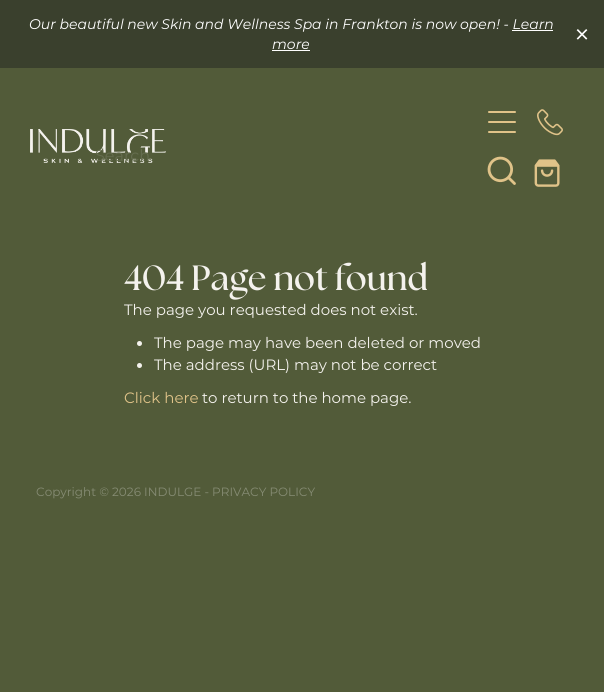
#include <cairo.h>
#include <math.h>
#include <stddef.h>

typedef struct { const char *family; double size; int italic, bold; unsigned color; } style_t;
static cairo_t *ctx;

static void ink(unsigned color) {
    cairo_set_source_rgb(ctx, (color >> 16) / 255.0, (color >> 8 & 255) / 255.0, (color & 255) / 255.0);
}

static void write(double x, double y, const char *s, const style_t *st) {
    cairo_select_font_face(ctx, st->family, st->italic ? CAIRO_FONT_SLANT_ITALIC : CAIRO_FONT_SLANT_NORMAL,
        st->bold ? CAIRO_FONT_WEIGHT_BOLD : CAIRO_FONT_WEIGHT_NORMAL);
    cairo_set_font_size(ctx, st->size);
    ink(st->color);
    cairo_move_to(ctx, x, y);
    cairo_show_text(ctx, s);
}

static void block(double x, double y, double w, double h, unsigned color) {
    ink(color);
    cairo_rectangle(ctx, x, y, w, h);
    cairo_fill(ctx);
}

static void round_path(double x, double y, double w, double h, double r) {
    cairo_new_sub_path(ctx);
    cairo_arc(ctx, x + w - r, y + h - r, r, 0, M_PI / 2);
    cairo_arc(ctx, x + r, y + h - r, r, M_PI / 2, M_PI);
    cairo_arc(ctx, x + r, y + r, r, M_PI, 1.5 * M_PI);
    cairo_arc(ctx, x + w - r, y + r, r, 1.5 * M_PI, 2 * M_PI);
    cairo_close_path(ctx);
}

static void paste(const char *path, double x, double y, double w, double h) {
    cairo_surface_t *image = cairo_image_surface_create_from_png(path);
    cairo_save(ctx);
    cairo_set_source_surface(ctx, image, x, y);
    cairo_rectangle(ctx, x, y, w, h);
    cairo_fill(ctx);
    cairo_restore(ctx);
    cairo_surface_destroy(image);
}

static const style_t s1 = {"Montserrat", 14, 1, 0, 0xffffff};
static const style_t s2 = {"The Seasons", 35, 0, 1, 0xf4f2ed};
static const style_t s3 = {"Montserrat", 15, 0, 0, 0xf4f2ed};
static const style_t s4 = {"Montserrat", 15, 0, 0, 0xe0c389};
static const style_t s5 = {"Montserrat", 12, 0, 0, 0x868c74};
static const style_t s6 = {"Montserrat", 16, 0, 0, 0x656d4f};

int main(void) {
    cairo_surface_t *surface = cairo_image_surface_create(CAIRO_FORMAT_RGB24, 604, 692);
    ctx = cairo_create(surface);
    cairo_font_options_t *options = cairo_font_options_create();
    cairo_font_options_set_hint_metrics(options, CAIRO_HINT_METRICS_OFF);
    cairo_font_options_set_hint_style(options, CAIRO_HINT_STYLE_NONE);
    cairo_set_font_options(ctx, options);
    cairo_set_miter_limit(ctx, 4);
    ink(0x525b39);
    cairo_paint(ctx);
    block(0, 0, 604, 68, 0x3a402d);
    write(29, 29, "Our beautiful new Skin and Wellness Spa in Frankton is now open! - Learn", &s1);
    block(512, 30, 41, 1, 0xffffff);
    write(272, 49, "more", &s1);
    block(272, 50, 38, 1, 0xffffff);
    paste("pic1.png", 576, 29, 12, 11);
    paste("pic2.png", 30, 129, 136, 34);
    ink(0xe0c389);
    round_path(488, 121, 28, 2, 1);
    cairo_fill(ctx);
    round_path(488, 111, 28, 2, 1);
    cairo_fill(ctx);
    round_path(488, 131, 28, 2, 1);
    cairo_fill(ctx);
    paste("pic3.png", 537, 109, 26, 27);
    paste("pic4.png", 487, 156, 29, 29);
    paste("pic5.png", 534, 159, 26, 28);
    write(124, 290, "404 Page not found", &s2);
    write(124, 315, "The page you requested does not exist.", &s3);
    cairo_new_path(ctx);
    cairo_arc(ctx, 139.5, 343.5, 2.5, 0, 2 * M_PI);
    cairo_fill(ctx);
    write(154, 348, "The page may have been deleted or moved", &s3);
    cairo_new_path(ctx);
    cairo_arc(ctx, 139.5, 365.5, 2.5, 0, 2 * M_PI);
    cairo_fill(ctx);
    write(154, 370, "The address (URL) may not be correct", &s3);
    write(124, 403, "Click here", &s4);
    write(202, 403, "to return to the home page.", &s3);
    write(36, 496, "Copyright © 2026 INDULGE - PRIVACY POLICY", &s5);
    write(95, 161, "Search", &s6);
    cairo_surface_write_to_png(surface, "screenshot.png");
    cairo_font_options_destroy(options);
    cairo_destroy(ctx);
    cairo_surface_destroy(surface);
    return 0;
}
